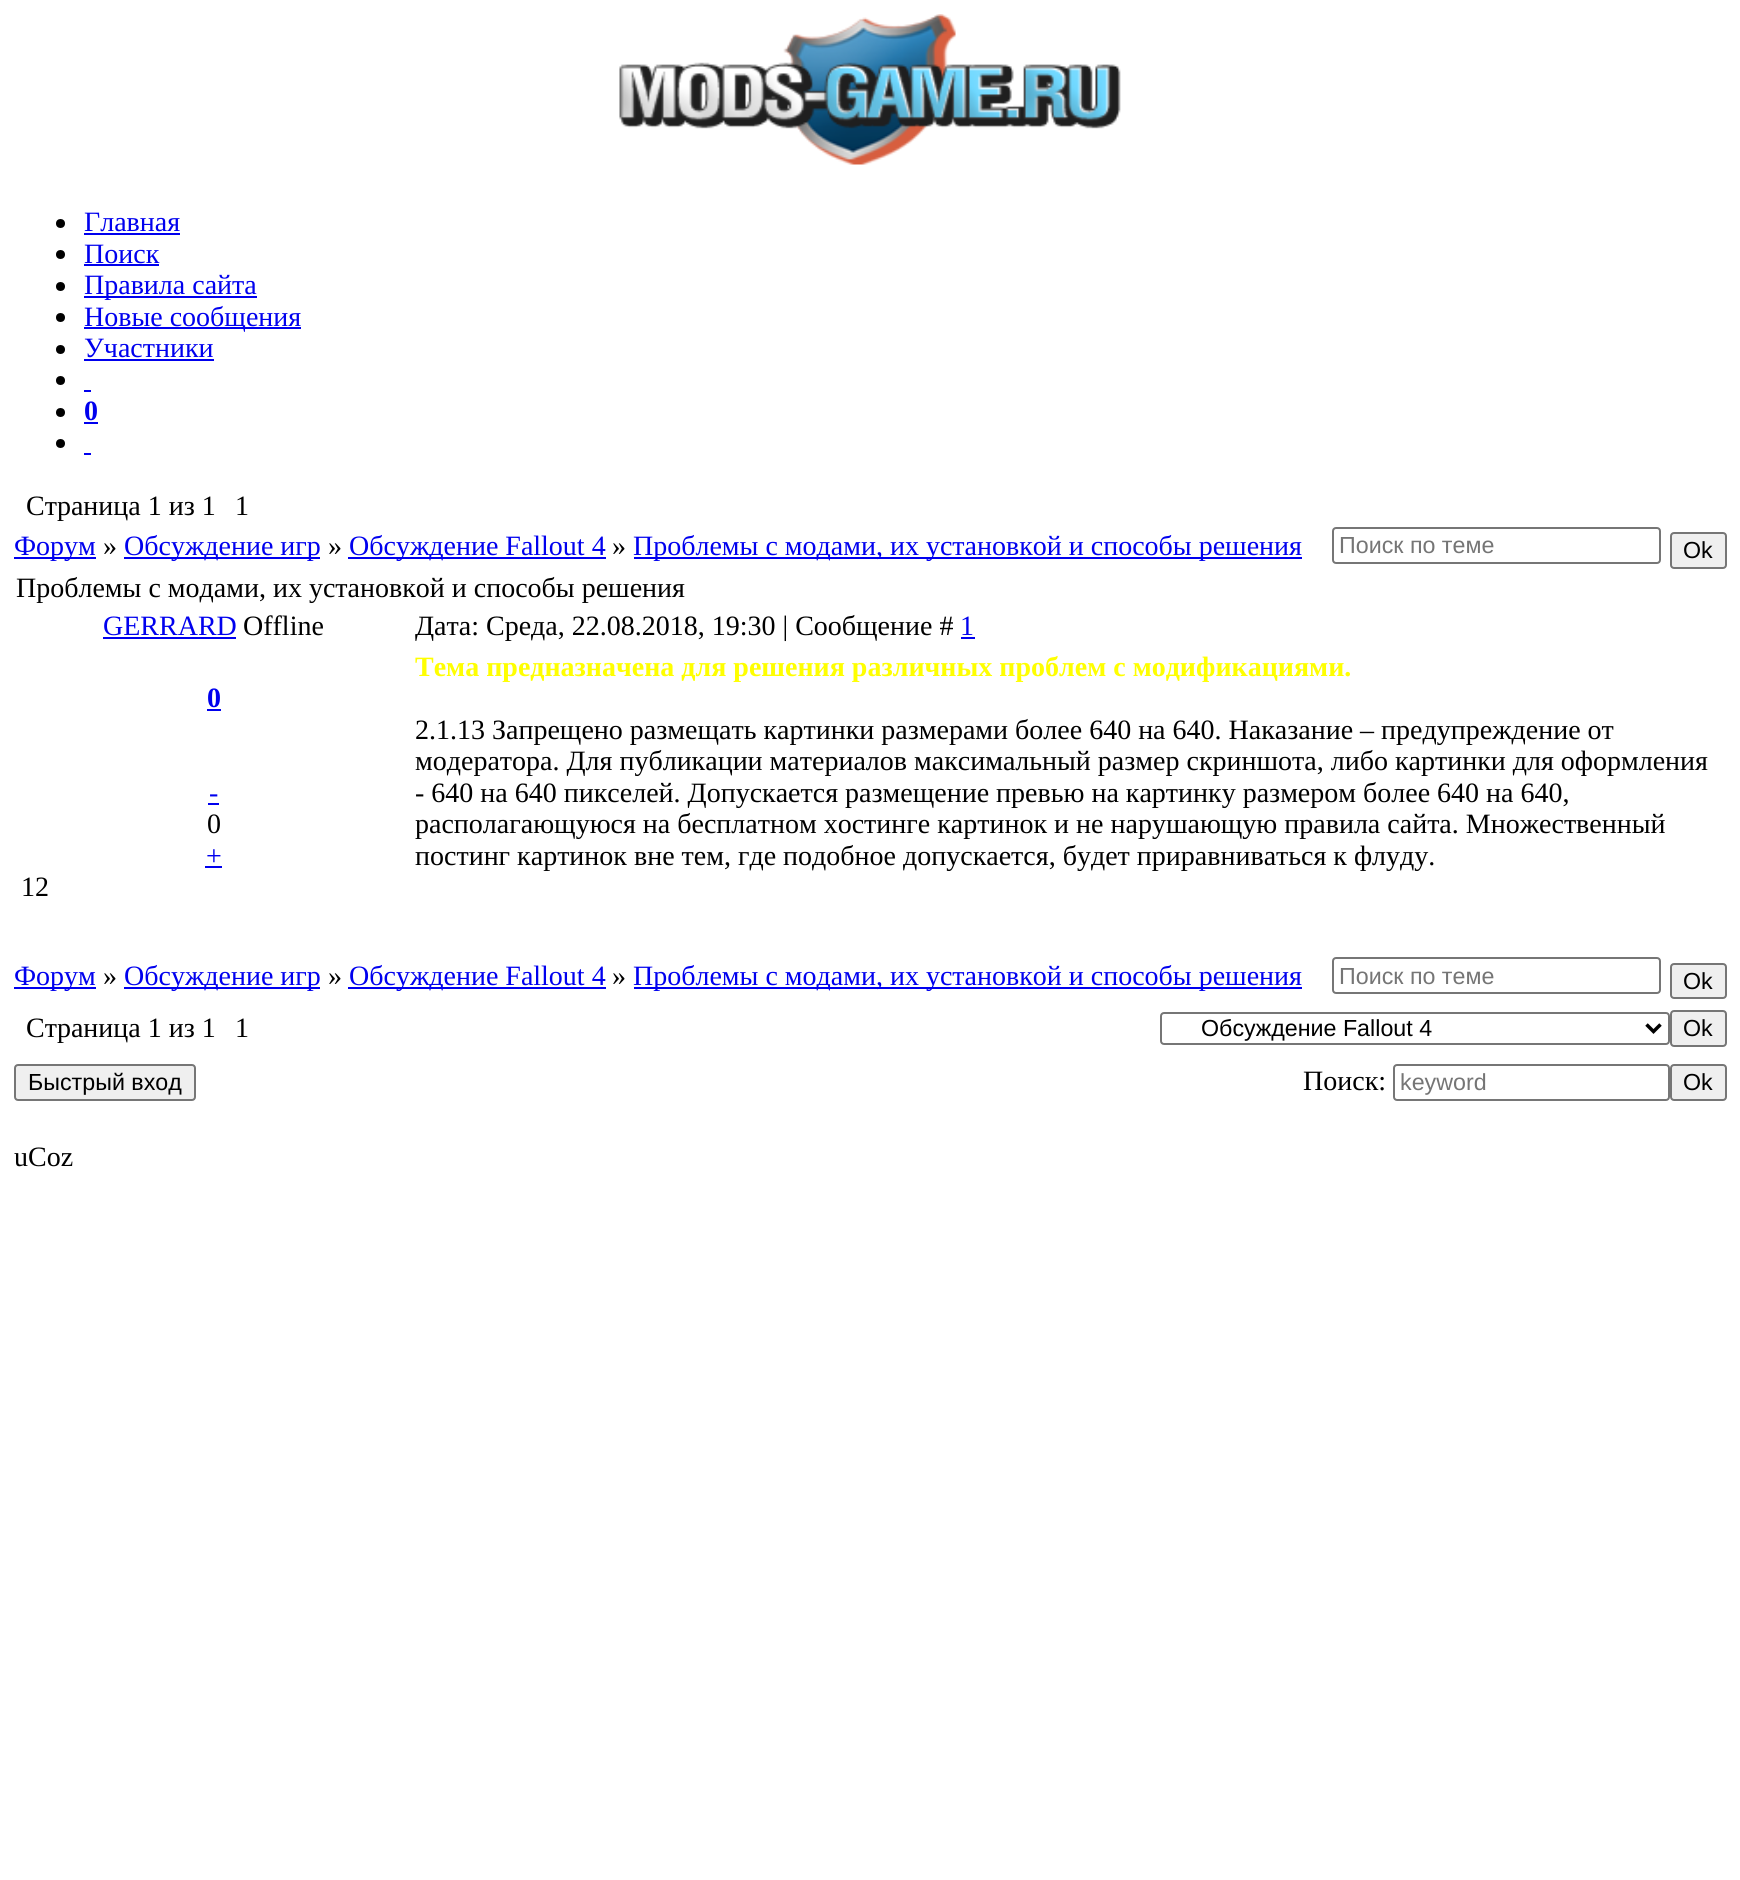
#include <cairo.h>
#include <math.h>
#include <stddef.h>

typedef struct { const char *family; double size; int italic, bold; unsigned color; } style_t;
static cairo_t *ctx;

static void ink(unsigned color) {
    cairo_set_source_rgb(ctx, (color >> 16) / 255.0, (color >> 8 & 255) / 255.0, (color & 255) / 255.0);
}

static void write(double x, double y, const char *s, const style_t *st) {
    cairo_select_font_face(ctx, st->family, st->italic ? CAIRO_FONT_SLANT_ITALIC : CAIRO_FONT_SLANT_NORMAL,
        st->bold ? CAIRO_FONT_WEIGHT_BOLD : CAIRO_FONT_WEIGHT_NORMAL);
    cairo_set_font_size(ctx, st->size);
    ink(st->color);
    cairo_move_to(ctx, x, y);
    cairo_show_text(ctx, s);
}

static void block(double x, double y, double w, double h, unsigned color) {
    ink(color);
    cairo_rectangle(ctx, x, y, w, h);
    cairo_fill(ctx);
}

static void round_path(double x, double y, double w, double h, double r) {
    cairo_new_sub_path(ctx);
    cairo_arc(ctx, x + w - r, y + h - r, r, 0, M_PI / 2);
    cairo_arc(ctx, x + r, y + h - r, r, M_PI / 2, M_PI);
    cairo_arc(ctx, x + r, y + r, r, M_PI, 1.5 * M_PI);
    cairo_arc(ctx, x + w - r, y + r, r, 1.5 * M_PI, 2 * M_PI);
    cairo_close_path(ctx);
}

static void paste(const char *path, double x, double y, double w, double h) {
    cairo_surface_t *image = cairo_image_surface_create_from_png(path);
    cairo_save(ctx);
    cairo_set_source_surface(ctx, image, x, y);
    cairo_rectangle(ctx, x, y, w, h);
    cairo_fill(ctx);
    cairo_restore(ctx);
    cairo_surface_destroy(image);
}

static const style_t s1 = {"Liberation Serif", 28, 0, 0, 0x0000ee};
static const style_t s2 = {"Liberation Serif", 28, 0, 1, 0x0000ee};
static const style_t s3 = {"Liberation Serif", 28, 0, 0, 0x000000};
static const style_t s4 = {"Liberation Sans", 23.25, 0, 0, 0x757575};
static const style_t s5 = {"Liberation Sans", 23.25, 0, 0, 0x000000};
static const style_t s6 = {"Liberation Serif", 28, 0, 1, 0xffff00};

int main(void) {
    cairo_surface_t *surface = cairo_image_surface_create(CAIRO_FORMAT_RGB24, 1740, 1880);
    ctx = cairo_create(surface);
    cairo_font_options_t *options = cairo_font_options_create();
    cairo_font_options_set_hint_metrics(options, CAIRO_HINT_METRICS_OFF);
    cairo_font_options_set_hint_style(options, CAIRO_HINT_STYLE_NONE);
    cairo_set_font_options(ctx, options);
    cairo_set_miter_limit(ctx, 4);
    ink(0xffffff);
    cairo_paint(ctx);
    paste("pic1.png", 619, 14, 502, 151);
    ink(0x000000);
    cairo_arc(ctx, 60.5, 223.5, 4.5, 0, 2 * M_PI);
    cairo_fill(ctx);
    write(84, 231, "Главная", &s1);
    block(84, 233, 96, 2, 0x0000ee);
    ink(0x000000);
    cairo_new_path(ctx);
    cairo_arc(ctx, 60.5, 254.5, 4.5, 0, 2 * M_PI);
    cairo_fill(ctx);
    write(84, 263, "Поиск", &s1);
    block(84, 264, 75, 2, 0x0000ee);
    ink(0x000000);
    cairo_new_path(ctx);
    cairo_arc(ctx, 60.5, 286.5, 4.5, 0, 2 * M_PI);
    cairo_fill(ctx);
    block(84, 296, 173, 2, 0x0000ee);
    write(84, 294, "Правила сайта", &s1);
    ink(0x000000);
    cairo_new_path(ctx);
    cairo_arc(ctx, 60.5, 317.5, 4.5, 0, 2 * M_PI);
    cairo_fill(ctx);
    block(84, 327, 217, 2, 0x0000ee);
    write(84, 326, "Новые сообщения", &s1);
    ink(0x000000);
    cairo_new_path(ctx);
    cairo_arc(ctx, 60.5, 349.5, 4.5, 0, 2 * M_PI);
    cairo_fill(ctx);
    write(84, 357, "Участники", &s1);
    block(84, 359, 130, 2, 0x0000ee);
    ink(0x000000);
    cairo_new_path(ctx);
    cairo_arc(ctx, 60.5, 380.5, 4.5, 0, 2 * M_PI);
    cairo_fill(ctx);
    block(84, 390, 7, 2, 0x0000ee);
    ink(0x000000);
    cairo_arc(ctx, 60.5, 412.5, 4.5, 0, 2 * M_PI);
    cairo_fill(ctx);
    write(84, 420, "0", &s2);
    block(84, 422, 14, 2, 0x0000ee);
    ink(0x000000);
    cairo_new_path(ctx);
    cairo_arc(ctx, 60.5, 443.5, 4.5, 0, 2 * M_PI);
    cairo_fill(ctx);
    block(84, 453, 7, 2, 0x0000ee);
    write(26, 515, "Страница 1 из 1", &s3);
    write(235, 515, "1", &s3);
    block(14, 557, 82, 2, 0x0000ee);
    write(14, 555, "Форум", &s1);
    write(103, 555, "»", &s3);
    block(124, 557, 196, 2, 0x0000ee);
    write(124, 555, "Обсуждение игр", &s1);
    write(328, 555, "»", &s3);
    block(348, 557, 258, 2, 0x0000ee);
    write(349, 555, "Обсуждение Fallout 4", &s1);
    write(612, 555, "»", &s3);
    block(634, 557, 668, 2, 0x0000ee);
    write(633, 555, "Проблемы с модами, их установкой и способы решения", &s1);
    round_path(1333, 528, 327, 35, 3);
    ink(0x767676);
    cairo_stroke(ctx);
    write(1339, 553, "Поиск по теме", &s4);
    ink(0xefefef);
    round_path(1671, 533, 55, 35, 3);
    cairo_fill_preserve(ctx);
    ink(0x767676);
    cairo_stroke(ctx);
    write(1683, 558, "Ok", &s5);
    write(16, 597, "Проблемы с модами, их установкой и способы решения", &s3);
    write(103, 635, "GERRARD", &s1);
    block(103, 637, 133, 2, 0x0000ee);
    write(243, 635, "Offline", &s3);
    write(415, 635, "Дата: Среда, 22.08.2018, 19:30 | Сообщение #", &s3);
    write(960, 635, "1", &s1);
    block(961, 637, 14, 2, 0x0000ee);
    write(207, 707, "0", &s2);
    block(207, 709, 14, 2, 0x0000ee);
    write(209, 802, "-", &s1);
    block(208, 803, 11, 2, 0x0000ee);
    write(207, 833, "0", &s3);
    write(206, 865, "+", &s1);
    block(205, 866, 17, 2, 0x0000ee);
    write(21, 896, "12", &s3);
    write(415, 676, "Тема предназначена для решения различных проблем с модификациями.", &s6);
    write(415, 739, "2.1.13 Запрещено размещать картинки размерами более 640 на 640. Наказание – предупреждение от", &s3);
    write(415, 770, "модератора. Для публикации материалов максимальный размер скриншота, либо картинки для оформления", &s3);
    write(415, 802, "- 640 на 640 пикселей. Допускается размещение превью на картинку размером более 640 на 640,", &s3);
    write(415, 833, "располагающуюся на бесплатном хостинге картинок и не нарушающую правила сайта. Множественный", &s3);
    write(415, 865, "постинг картинок вне тем, где подобное допускается, будет приравниваться к флуду.", &s3);
    block(14, 987, 82, 2, 0x0000ee);
    write(14, 985, "Форум", &s1);
    write(103, 985, "»", &s3);
    block(124, 987, 196, 2, 0x0000ee);
    write(124, 985, "Обсуждение игр", &s1);
    write(328, 985, "»", &s3);
    block(348, 987, 258, 2, 0x0000ee);
    write(349, 985, "Обсуждение Fallout 4", &s1);
    write(612, 985, "»", &s3);
    block(634, 987, 668, 2, 0x0000ee);
    write(633, 985, "Проблемы с модами, их установкой и способы решения", &s1);
    round_path(1333, 958, 327, 35, 3);
    ink(0x767676);
    cairo_stroke(ctx);
    write(1339, 984, "Поиск по теме", &s4);
    ink(0xefefef);
    round_path(1671, 964, 55, 34, 3);
    cairo_fill_preserve(ctx);
    ink(0x767676);
    cairo_stroke(ctx);
    write(1683, 989, "Ok", &s5);
    write(26, 1037, "Страница 1 из 1", &s3);
    write(235, 1037, "1", &s3);
    round_path(1161, 1013, 508, 31, 3);
    ink(0x767676);
    cairo_stroke(ctx);
    cairo_new_path(ctx);
    cairo_move_to(ctx, 1646.5, 1024.5);
    cairo_line_to(ctx, 1653.5, 1031.5);
    cairo_line_to(ctx, 1660.5, 1024.5);
    ink(0x000000);
    cairo_set_line_width(ctx, 3.5);
    cairo_stroke(ctx);
    write(1201, 1036, "Обсуждение Fallout 4", &s5);
    ink(0xefefef);
    round_path(1671, 1011, 55, 35, 3);
    cairo_fill_preserve(ctx);
    ink(0x767676);
    cairo_set_line_width(ctx, 2);
    cairo_stroke(ctx);
    write(1683, 1036, "Ok", &s5);
    ink(0xefefef);
    round_path(15, 1065, 180, 35, 3);
    cairo_fill_preserve(ctx);
    ink(0x767676);
    cairo_stroke(ctx);
    write(28, 1090, "Быстрый вход", &s5);
    write(1303, 1090, "Поиск:", &s3);
    round_path(1394, 1065, 275, 35, 3);
    ink(0x767676);
    cairo_stroke(ctx);
    write(1400, 1090, "keyword", &s4);
    ink(0xefefef);
    round_path(1671, 1065, 55, 35, 3);
    cairo_fill_preserve(ctx);
    ink(0x767676);
    cairo_stroke(ctx);
    write(1683, 1090, "Ok", &s5);
    write(14, 1166, "uCoz", &s3);
    cairo_surface_write_to_png(surface, "screenshot.png");
    cairo_font_options_destroy(options);
    cairo_destroy(ctx);
    cairo_surface_destroy(surface);
    return 0;
}
